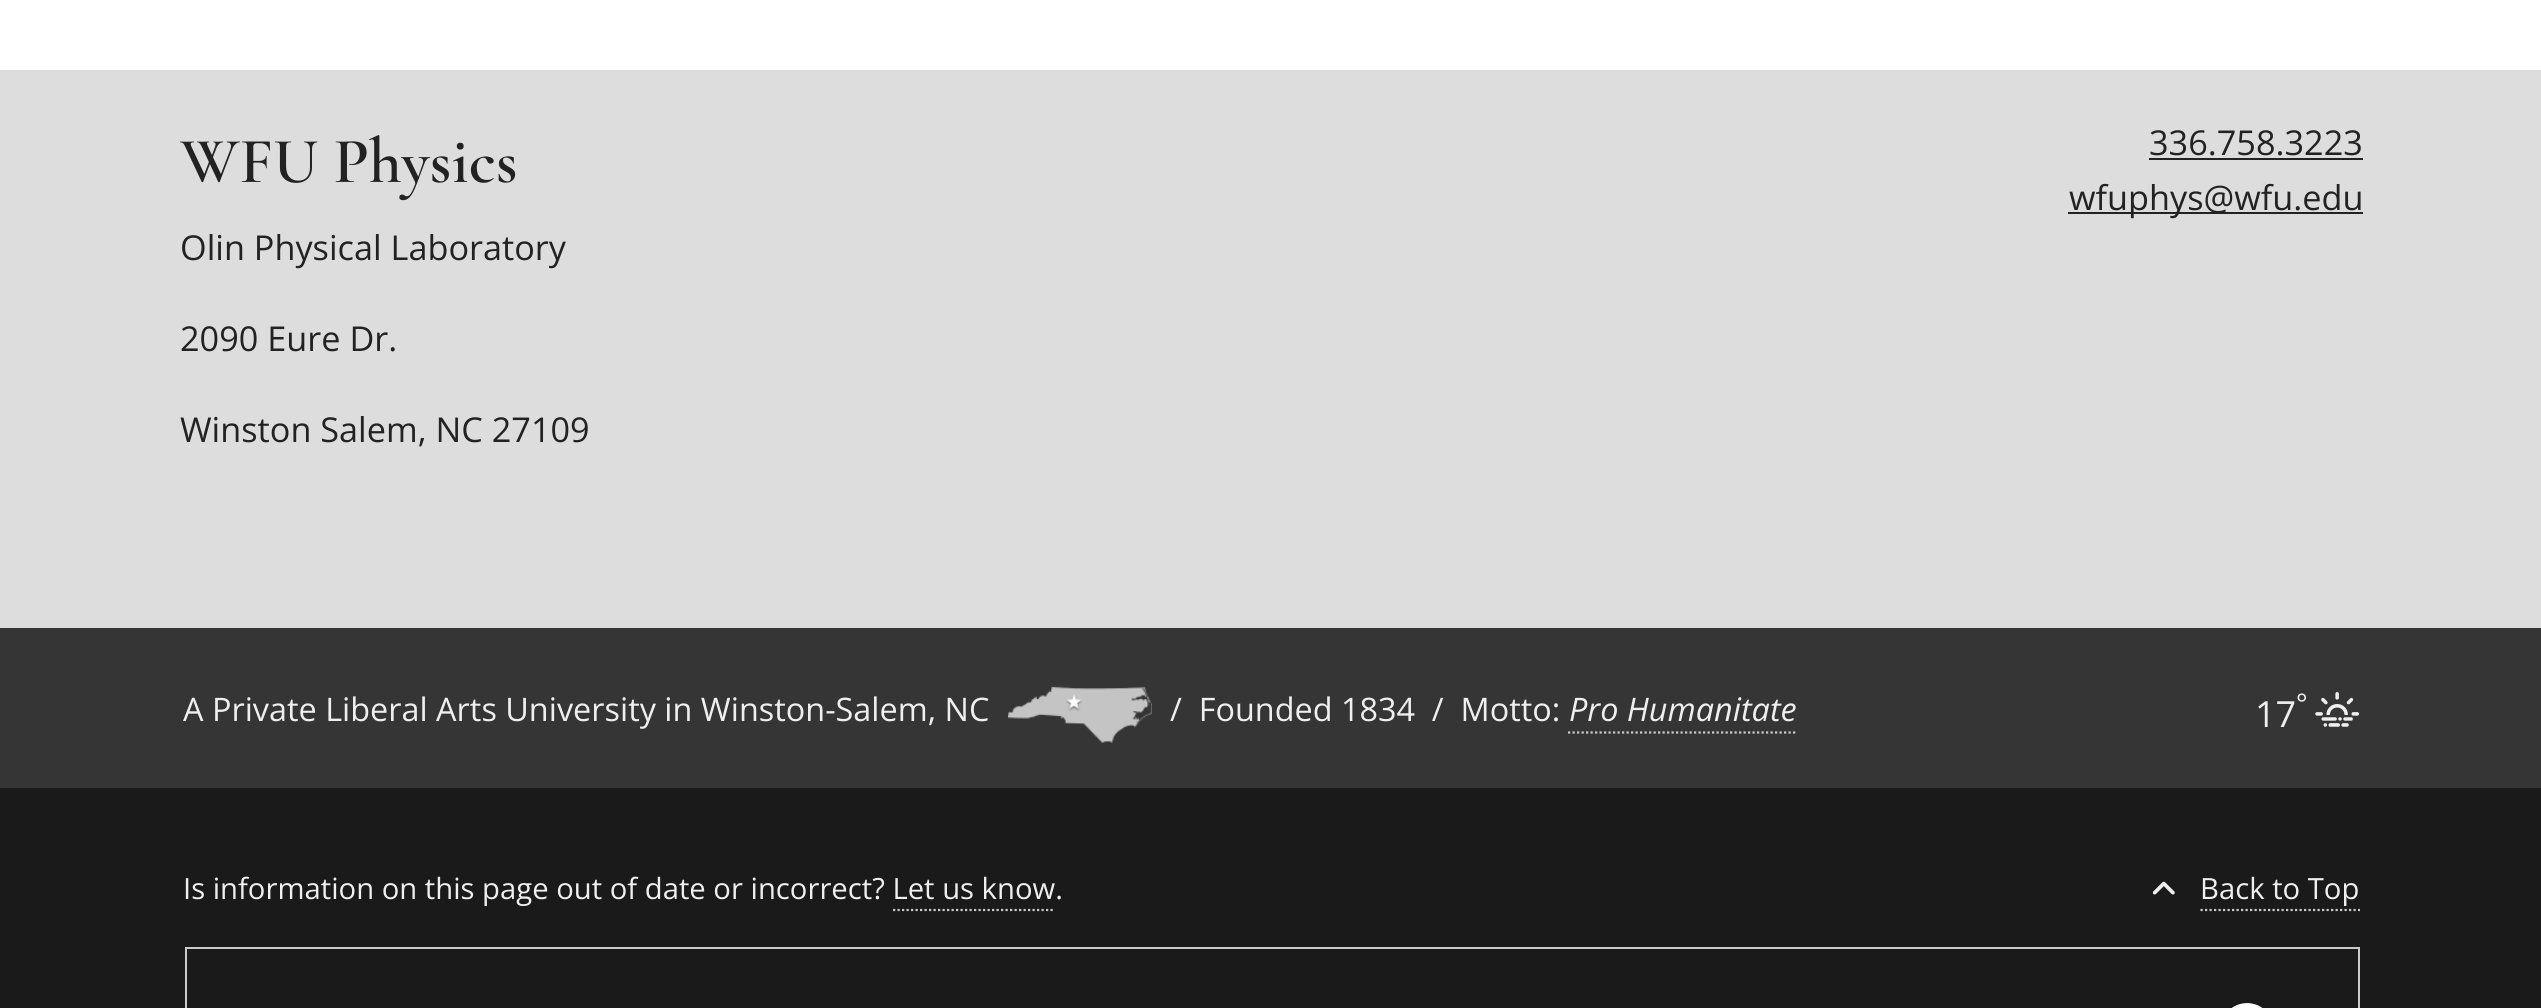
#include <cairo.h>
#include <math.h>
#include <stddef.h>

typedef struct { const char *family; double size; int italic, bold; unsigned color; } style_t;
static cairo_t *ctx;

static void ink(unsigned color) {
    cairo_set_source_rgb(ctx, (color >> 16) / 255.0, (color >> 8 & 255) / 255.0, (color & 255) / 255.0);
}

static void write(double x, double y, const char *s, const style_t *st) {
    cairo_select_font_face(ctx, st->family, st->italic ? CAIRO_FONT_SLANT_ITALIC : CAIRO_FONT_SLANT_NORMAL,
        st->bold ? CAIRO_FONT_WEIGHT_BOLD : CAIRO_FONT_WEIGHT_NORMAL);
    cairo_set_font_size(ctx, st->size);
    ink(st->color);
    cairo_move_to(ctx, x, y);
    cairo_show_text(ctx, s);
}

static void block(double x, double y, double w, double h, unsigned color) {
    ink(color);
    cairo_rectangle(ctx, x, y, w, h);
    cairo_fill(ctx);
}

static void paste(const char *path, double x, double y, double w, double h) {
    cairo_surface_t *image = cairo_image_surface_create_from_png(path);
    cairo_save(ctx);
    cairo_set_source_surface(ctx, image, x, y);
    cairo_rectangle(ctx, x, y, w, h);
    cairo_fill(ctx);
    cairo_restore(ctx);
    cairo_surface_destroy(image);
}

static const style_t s1 = {"Cormorant SemiBold", 64.75, 0, 0, 0x222222};
static const style_t s2 = {"Open Sans", 34.25, 0, 0, 0x222222};
static const style_t s3 = {"Open Sans", 32.4, 0, 0, 0xefefef};
static const style_t s4 = {"Open Sans", 32.4, 1, 0, 0xefefef};
static const style_t s5 = {"Open Sans", 27, 0, 0, 0xefefef};
static const style_t s6 = {"Open Sans", 36, 0, 0, 0xefefef};
static const style_t s7 = {"Open Sans", 29.25, 0, 0, 0xefefef};

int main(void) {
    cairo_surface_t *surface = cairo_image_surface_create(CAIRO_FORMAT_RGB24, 2541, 1008);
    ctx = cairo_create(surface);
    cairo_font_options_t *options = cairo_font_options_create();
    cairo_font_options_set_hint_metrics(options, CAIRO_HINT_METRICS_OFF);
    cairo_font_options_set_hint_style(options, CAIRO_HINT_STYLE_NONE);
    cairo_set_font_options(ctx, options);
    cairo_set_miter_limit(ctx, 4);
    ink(0xffffff);
    cairo_paint(ctx);
    block(0, 70, 2541, 558, 0xdddddd);
    write(180, 182, "WFU Physics", &s1);
    write(180, 260, "Olin Physical Laboratory", &s2);
    write(180, 351, "2090 Eure Dr.", &s2);
    write(180, 442, "Winston Salem, NC 27109", &s2);
    write(2149, 155, "336.758.3223", &s2);
    block(2149, 158, 214, 2, 0x222222);
    block(2068, 212, 295, 2, 0x222222);
    write(2069, 210, "wfuphys@wfu.edu", &s2);
    block(0, 628, 2541, 160, 0x353535);
    write(183, 721, "A Private Liberal Arts University in Winston-Salem, NC", &s3);
    paste("pic1.png", 1008, 686, 144, 57);
    write(1170, 721, "/  Founded 1834  /  Motto:", &s3);
    write(1569, 721, "Pro Humanitate", &s4);
    cairo_new_path(ctx);
    cairo_move_to(ctx, 1568, 732.5);
    cairo_line_to(ctx, 1795.5, 732.5);
    ink(0xcccccc);
    cairo_set_line_width(ctx, 2.2);
    cairo_set_dash(ctx, (double[]){2.25, 2.25}, 2, 0);
    cairo_stroke(ctx);
    write(2296, 713, "°", &s5);
    paste("pic2.png", 2315, 692, 45, 35);
    write(2255, 727, "17", &s6);
    block(0, 788, 2541, 220, 0x1a1a1a);
    write(183, 899, "Is information on this page out of date or incorrect? Let us know.", &s7);
    paste("pic3.png", 2152, 881, 23, 14);
    write(2200, 899, "Back to Top", &s7);
    cairo_new_path(ctx);
    cairo_move_to(ctx, 2200.5, 910);
    cairo_line_to(ctx, 2360, 910);
    ink(0xcccccc);
    cairo_stroke(ctx);
    cairo_new_path(ctx);
    cairo_move_to(ctx, 893, 910);
    cairo_line_to(ctx, 1055, 910);
    cairo_stroke(ctx);
    cairo_rectangle(ctx, 186, 948, 2173, 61);
    ink(0xcacaca);
    cairo_set_line_width(ctx, 2);
    cairo_set_dash(ctx, NULL, 0, 0);
    cairo_stroke(ctx);
    paste("pic4.png", 2231, 1003, 32, 5);
    cairo_surface_write_to_png(surface, "screenshot.png");
    cairo_font_options_destroy(options);
    cairo_destroy(ctx);
    cairo_surface_destroy(surface);
    return 0;
}
